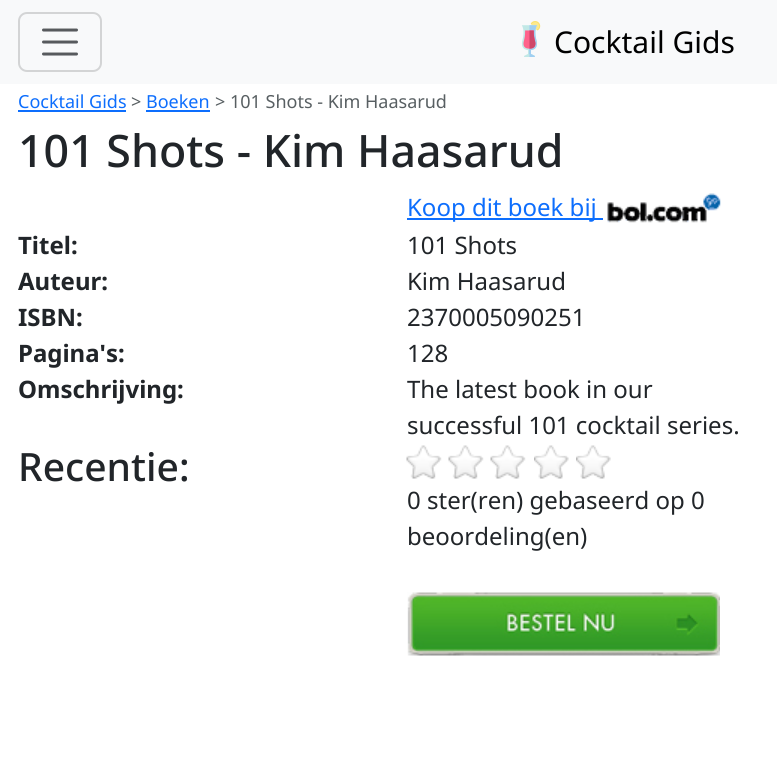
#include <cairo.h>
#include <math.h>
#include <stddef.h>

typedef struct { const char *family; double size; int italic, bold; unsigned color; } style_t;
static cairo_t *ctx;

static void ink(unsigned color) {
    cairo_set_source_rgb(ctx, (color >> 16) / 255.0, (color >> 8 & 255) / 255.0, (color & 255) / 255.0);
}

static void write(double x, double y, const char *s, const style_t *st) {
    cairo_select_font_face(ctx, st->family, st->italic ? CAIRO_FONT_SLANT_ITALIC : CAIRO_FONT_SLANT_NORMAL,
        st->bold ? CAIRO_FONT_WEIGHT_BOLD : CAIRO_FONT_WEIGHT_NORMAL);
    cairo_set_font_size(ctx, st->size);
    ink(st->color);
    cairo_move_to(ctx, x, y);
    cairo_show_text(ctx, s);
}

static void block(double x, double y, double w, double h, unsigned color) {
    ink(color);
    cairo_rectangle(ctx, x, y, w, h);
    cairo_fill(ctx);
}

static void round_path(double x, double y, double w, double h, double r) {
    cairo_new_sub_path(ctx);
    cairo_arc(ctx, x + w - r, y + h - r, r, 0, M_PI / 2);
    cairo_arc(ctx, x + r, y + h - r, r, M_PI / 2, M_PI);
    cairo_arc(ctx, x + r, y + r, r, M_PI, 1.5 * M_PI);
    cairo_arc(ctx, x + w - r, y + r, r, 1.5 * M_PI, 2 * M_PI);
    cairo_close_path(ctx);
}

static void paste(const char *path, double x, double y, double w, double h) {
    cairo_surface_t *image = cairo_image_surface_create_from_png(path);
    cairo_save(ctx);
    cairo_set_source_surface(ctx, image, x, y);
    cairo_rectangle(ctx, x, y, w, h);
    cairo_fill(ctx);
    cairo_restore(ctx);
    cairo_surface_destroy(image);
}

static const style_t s1 = {"Noto Sans", 30, 0, 0, 0x000000};
static const style_t s2 = {"Noto Sans", 18, 0, 0, 0x0d6efd};
static const style_t s3 = {"Noto Sans", 18, 0, 0, 0x585f62};
static const style_t s4 = {"Noto Sans Medium", 44.7, 0, 0, 0x212529};
static const style_t s5 = {"Noto Sans", 24, 0, 0, 0x0d6efd};
static const style_t s6 = {"Noto Sans", 24, 0, 1, 0x212529};
static const style_t s7 = {"Noto Sans", 24, 0, 0, 0x212529};
static const style_t s8 = {"Noto Sans Medium", 39, 0, 0, 0x212529};

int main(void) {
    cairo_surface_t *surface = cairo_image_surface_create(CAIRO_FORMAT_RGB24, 777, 759);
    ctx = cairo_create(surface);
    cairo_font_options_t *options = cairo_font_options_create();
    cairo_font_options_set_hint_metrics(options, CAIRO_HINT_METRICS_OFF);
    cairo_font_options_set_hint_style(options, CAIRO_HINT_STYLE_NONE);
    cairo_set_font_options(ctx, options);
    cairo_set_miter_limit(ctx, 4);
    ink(0xffffff);
    cairo_paint(ctx);
    block(0, 0, 777, 84, 0xf8f9fa);
    round_path(19, 13, 82, 58, 8);
    ink(0xd3d4d5);
    cairo_stroke(ctx);
    cairo_new_path(ctx);
    cairo_move_to(ctx, 43.5, 30);
    cairo_line_to(ctx, 76.5, 30);
    cairo_move_to(ctx, 43.5, 42);
    cairo_line_to(ctx, 76.5, 42);
    cairo_move_to(ctx, 43.5, 54);
    cairo_line_to(ctx, 76.5, 54);
    ink(0x575a5d);
    cairo_set_line_width(ctx, 3);
    cairo_set_line_cap(ctx, CAIRO_LINE_CAP_ROUND);
    cairo_stroke(ctx);
    paste("pic1.png", 521, 21, 20, 36);
    write(554, 53, "Cocktail Gids", &s1);
    write(18, 108, "Cocktail Gids", &s2);
    block(18, 110, 108, 2, 0x0d6efd);
    write(131, 108, ">", &s3);
    write(146, 108, "Boeken", &s2);
    block(146, 110, 64, 2, 0x0d6efd);
    write(215, 108, "> 101 Shots - Kim Haasarud", &s3);
    write(18, 167, "101 Shots - Kim Haasarud", &s4);
    block(407, 218, 196, 2, 0x0d6efd);
    write(407, 216, "Koop dit boek bij", &s5);
    paste("pic2.png", 607, 193, 114, 30);
    write(18, 254, "Titel:", &s6);
    write(407, 254, "101 Shots", &s7);
    write(18, 290, "Auteur:", &s6);
    write(407, 290, "Kim Haasarud", &s7);
    write(18, 326, "ISBN:", &s6);
    write(407, 326, "2370005090251", &s7);
    write(18, 362, "Pagina's:", &s6);
    write(407, 362, "128", &s7);
    write(18, 398, "Omschrijving:", &s6);
    write(407, 398, "The latest book in our", &s7);
    write(407, 434, "successful 101 cocktail series.", &s7);
    write(18, 481, "Recentie:", &s8);
    paste("pic3.png", 406, 445, 36, 34);
    paste("pic4.png", 448, 445, 36, 34);
    paste("pic4.png", 490, 445, 36, 34);
    paste("pic5.png", 534, 445, 35, 34);
    paste("pic6.png", 576, 445, 35, 34);
    write(407, 509, "0 ster(ren) gebaseerd op 0", &s7);
    write(407, 545, "beoordeling(en)", &s7);
    paste("pic7.png", 407, 592, 313, 64);
    cairo_surface_write_to_png(surface, "screenshot.png");
    cairo_font_options_destroy(options);
    cairo_destroy(ctx);
    cairo_surface_destroy(surface);
    return 0;
}
